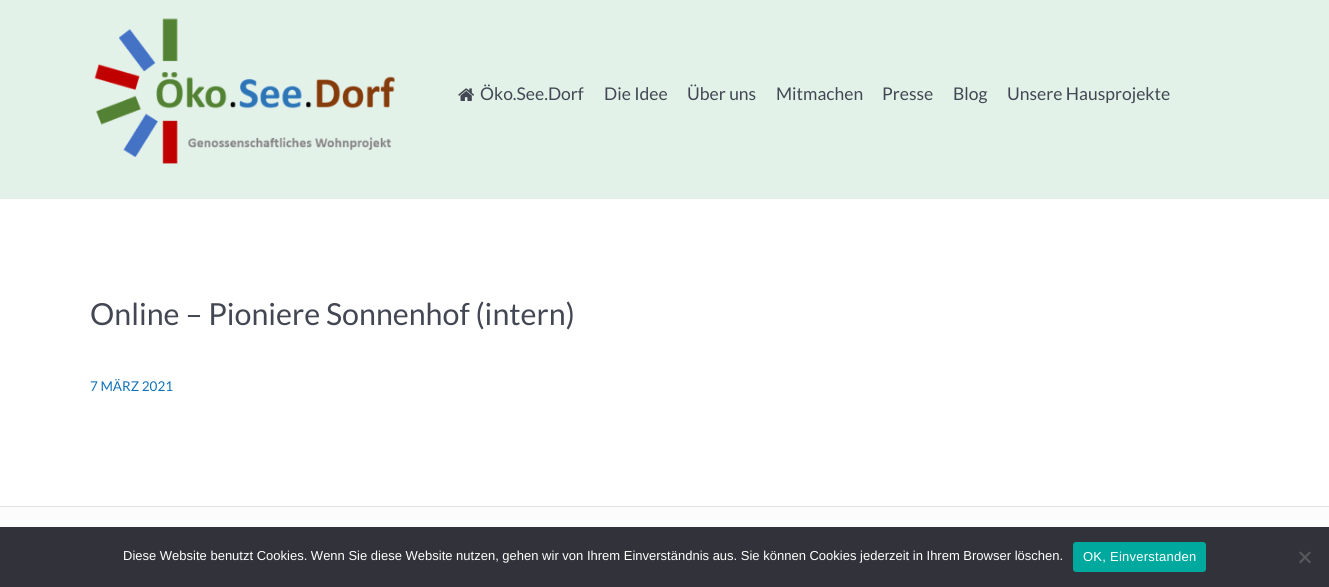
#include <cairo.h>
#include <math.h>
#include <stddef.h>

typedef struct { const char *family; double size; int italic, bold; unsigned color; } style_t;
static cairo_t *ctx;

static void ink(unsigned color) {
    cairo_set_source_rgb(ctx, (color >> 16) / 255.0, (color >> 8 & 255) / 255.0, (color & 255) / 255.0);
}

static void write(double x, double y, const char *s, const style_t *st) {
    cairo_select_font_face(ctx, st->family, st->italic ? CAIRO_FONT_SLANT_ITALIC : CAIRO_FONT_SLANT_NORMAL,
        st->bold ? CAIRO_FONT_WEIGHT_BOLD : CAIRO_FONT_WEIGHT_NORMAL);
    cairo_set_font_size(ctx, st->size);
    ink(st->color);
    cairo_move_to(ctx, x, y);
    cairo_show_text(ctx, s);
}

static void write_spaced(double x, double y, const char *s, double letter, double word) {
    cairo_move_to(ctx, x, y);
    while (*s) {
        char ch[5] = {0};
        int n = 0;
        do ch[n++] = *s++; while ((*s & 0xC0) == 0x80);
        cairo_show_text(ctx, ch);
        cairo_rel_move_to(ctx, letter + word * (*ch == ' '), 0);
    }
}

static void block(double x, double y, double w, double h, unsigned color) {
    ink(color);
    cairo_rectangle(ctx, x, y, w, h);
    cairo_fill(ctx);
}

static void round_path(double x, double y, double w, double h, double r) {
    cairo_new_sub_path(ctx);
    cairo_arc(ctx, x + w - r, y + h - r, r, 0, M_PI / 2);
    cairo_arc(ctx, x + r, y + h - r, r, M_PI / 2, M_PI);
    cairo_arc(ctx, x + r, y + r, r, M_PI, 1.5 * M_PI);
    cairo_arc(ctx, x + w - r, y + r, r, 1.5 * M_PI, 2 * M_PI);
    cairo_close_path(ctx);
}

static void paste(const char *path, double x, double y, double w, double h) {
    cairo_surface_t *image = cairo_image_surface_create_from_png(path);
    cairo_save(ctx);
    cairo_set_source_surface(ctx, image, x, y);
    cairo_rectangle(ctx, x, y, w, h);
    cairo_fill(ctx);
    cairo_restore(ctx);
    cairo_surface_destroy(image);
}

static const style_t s1 = {"Lato", 17.5, 0, 0, 0x424753};
static const style_t s2 = {"Lato", 30.4, 0, 0, 0x424753};
static const style_t s3 = {"Lato", 13.5, 0, 0, 0x1072b9};
static const style_t s4 = {"Liberation Sans", 13, 0, 0, 0xffffff};

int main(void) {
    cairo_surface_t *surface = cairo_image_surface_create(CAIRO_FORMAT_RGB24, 1329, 587);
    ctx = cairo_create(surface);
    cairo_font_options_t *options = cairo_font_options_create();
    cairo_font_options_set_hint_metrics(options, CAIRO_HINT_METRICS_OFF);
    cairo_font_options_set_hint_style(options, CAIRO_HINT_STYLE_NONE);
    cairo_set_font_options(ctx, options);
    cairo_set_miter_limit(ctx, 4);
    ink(0xffffff);
    cairo_paint(ctx);
    block(0, 0, 1329, 199, 0xe2f2e8);
    paste("pic1.png", 94, 18, 301, 146);
    paste("pic2.png", 458, 88, 16, 13);
    write(480, 100, "Öko.See.Dorf", &s1);
    write(604, 100, "Die Idee", &s1);
    write(687, 100, "Über uns", &s1);
    write(776, 100, "Mitmachen", &s1);
    write(882, 100, "Presse", &s1);
    write(953, 100, "Blog", &s1);
    write(1007, 100, "Unsere Hausprojekte", &s1);
    write(90, 325, "Online – Pioniere Sonnenhof (intern)", &s2);
    write(90, 391, "7 MÄRZ 2021", &s3);
    block(0, 507, 1329, 20, 0xfcfcfc);
    block(0, 506, 1329, 1, 0xe0e0e0);
    block(0, 527, 1329, 60, 0x32323a);
    write(123, 560, "Diese Website benutzt Cookies. Wenn Sie diese Website nutzen, gehen wir von Ihrem Einverständnis aus. Sie können Cookies jederzeit in Ihrem Browser löschen.", &s4);
    ink(0x00a99d);
    round_path(1073, 542, 133, 30, 3);
    cairo_fill(ctx);
    ink(0xffffff);
    write_spaced(1083, 561, "OK, Einverstanden", 0.25, 0);
    ink(0x59595d);
    cairo_new_path(ctx);
    cairo_move_to(ctx, 1309.5, 551.5);
    cairo_line_to(ctx, 1311, 552.5);
    cairo_line_to(ctx, 1300.5, 563.5);
    cairo_line_to(ctx, 1299, 562);
    cairo_close_path(ctx);
    cairo_fill(ctx);
    cairo_new_path(ctx);
    cairo_move_to(ctx, 1299, 552.5);
    cairo_line_to(ctx, 1300.5, 551.5);
    cairo_line_to(ctx, 1311, 562);
    cairo_line_to(ctx, 1309.5, 563.5);
    cairo_close_path(ctx);
    cairo_fill(ctx);
    cairo_surface_write_to_png(surface, "screenshot.png");
    cairo_font_options_destroy(options);
    cairo_destroy(ctx);
    cairo_surface_destroy(surface);
    return 0;
}
